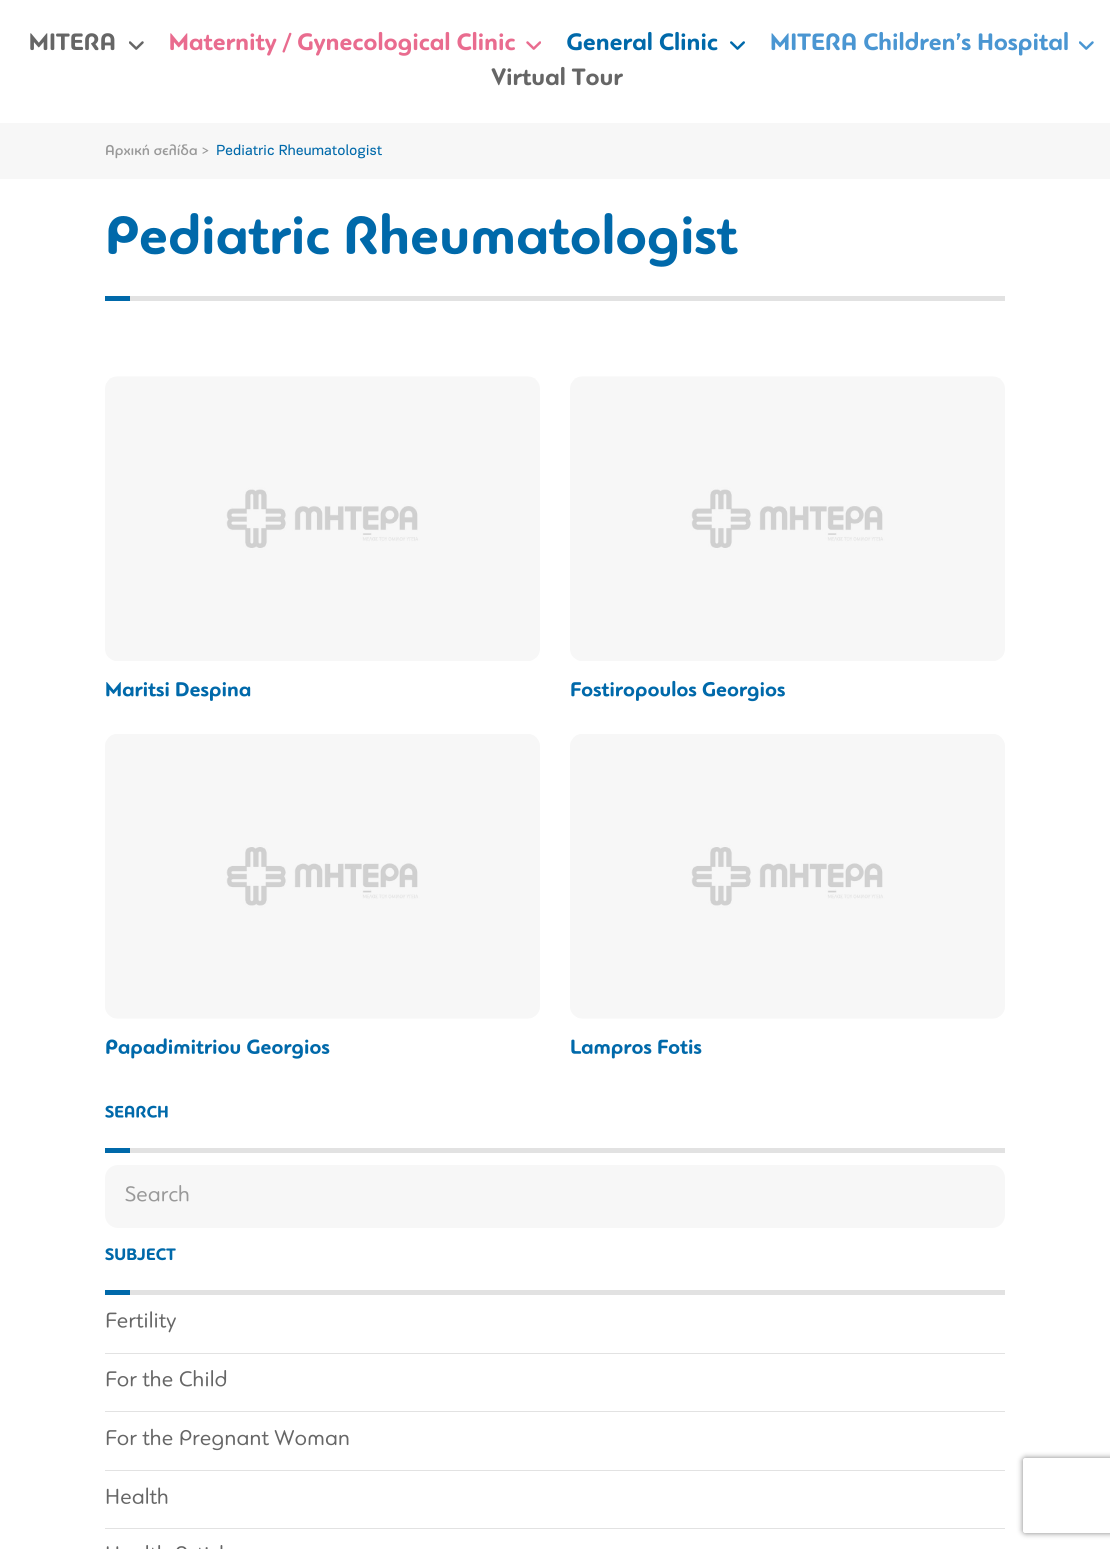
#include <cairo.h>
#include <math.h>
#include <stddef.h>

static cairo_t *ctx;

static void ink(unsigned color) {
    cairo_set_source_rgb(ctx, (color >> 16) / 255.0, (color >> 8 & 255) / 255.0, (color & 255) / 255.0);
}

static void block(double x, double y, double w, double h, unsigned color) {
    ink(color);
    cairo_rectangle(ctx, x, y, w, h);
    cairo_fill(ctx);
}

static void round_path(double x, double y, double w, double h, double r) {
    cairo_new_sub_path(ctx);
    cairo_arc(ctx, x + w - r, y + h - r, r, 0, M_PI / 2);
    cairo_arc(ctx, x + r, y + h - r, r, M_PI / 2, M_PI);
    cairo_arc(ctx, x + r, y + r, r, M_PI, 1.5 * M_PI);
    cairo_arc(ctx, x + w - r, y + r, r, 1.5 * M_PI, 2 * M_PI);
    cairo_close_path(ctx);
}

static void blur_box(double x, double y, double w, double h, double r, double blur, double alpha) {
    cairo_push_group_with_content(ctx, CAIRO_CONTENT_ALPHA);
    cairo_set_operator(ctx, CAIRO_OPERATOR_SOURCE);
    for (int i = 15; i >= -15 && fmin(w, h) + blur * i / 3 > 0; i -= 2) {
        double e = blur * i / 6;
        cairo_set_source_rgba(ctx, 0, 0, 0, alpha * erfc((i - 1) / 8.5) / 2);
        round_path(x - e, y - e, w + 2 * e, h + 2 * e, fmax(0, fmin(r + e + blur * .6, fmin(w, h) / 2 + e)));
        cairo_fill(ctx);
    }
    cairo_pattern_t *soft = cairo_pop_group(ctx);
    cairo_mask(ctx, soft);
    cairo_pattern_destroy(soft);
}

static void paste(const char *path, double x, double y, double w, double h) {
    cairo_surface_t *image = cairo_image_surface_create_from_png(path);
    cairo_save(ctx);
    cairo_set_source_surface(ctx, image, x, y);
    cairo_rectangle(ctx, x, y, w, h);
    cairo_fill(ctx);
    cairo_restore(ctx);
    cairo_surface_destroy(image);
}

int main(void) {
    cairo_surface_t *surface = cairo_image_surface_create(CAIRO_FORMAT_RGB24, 1110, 1549);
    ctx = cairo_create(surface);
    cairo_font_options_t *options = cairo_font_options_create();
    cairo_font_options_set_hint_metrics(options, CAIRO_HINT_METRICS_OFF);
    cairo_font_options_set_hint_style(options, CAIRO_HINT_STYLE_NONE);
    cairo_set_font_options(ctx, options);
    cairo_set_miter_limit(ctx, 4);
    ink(0xffffff);
    cairo_paint(ctx);
    paste("pic1.png", 30, 33, 85, 18);
    paste("pic2.png", 129, 41, 15, 9);
    paste("pic3.png", 170, 31, 345, 25);
    paste("pic4.png", 526, 41, 15, 9);
    paste("pic5.png", 567, 31, 151, 20);
    paste("pic6.png", 730, 41, 15, 9);
    paste("pic7.png", 771, 31, 297, 25);
    paste("pic8.png", 1079, 41, 15, 9);
    paste("pic9.png", 491, 66, 132, 20);
    block(0, 123, 1110, 56, 0xf7f7f7);
    paste("pic10.png", 106, 144, 91, 15);
    paste("pic11.png", 202, 147, 7, 7);
    paste("pic12.png", 217, 144, 165, 15);
    paste("pic13.png", 108, 213, 630, 54);
    block(105, 296, 25, 5, 0x0069aa);
    block(130, 296, 875, 5, 0xe2e2e2);
    paste("pic14.png", 105, 376, 435, 285);
    paste("pic15.png", 106, 682, 145, 19);
    paste("pic16.png", 570, 376, 435, 285);
    paste("pic17.png", 571, 680, 214, 22);
    paste("pic18.png", 105, 734, 435, 285);
    paste("pic19.png", 106, 1038, 224, 21);
    paste("pic20.png", 570, 734, 435, 285);
    paste("pic21.png", 571, 1039, 131, 20);
    paste("pic22.png", 105, 1105, 63, 13);
    block(105, 1148, 25, 5, 0x0069aa);
    block(130, 1148, 875, 5, 0xe2e2e2);
    ink(0xf7f7f7);
    round_path(105, 1165, 900, 63, 13);
    cairo_fill(ctx);
    paste("pic23.png", 125, 1185, 64, 17);
    paste("pic24.png", 105, 1248, 71, 13);
    block(105, 1290, 25, 5, 0x0069aa);
    block(130, 1290, 875, 5, 0xe2e2e2);
    block(105, 1353, 900, 1, 0xe2e2e2);
    paste("pic25.png", 106, 1311, 70, 22);
    block(105, 1411, 900, 1, 0xe2e2e2);
    paste("pic26.png", 106, 1370, 121, 17);
    block(105, 1470, 900, 1, 0xe2e2e2);
    paste("pic27.png", 106, 1428, 243, 23);
    block(105, 1528, 900, 1, 0xe2e2e2);
    paste("pic28.png", 106, 1487, 62, 17);
    paste("pic29.png", 106, 1545, 117, 4);
    cairo_save(ctx);
    cairo_set_fill_rule(ctx, CAIRO_FILL_RULE_EVEN_ODD);
    cairo_new_path(ctx);
    cairo_move_to(ctx, 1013, 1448);
    cairo_line_to(ctx, 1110, 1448);
    cairo_line_to(ctx, 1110, 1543);
    cairo_line_to(ctx, 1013, 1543);
    cairo_close_path(ctx);
    cairo_move_to(ctx, 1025.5, 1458);
    cairo_line_to(ctx, 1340.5, 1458);
    cairo_curve_to(ctx, 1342, 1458, 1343, 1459, 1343, 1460.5);
    cairo_line_to(ctx, 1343, 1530.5);
    cairo_curve_to(ctx, 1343, 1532, 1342, 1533, 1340.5, 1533);
    cairo_line_to(ctx, 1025.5, 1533);
    cairo_curve_to(ctx, 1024, 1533, 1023, 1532, 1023, 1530.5);
    cairo_line_to(ctx, 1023, 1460.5);
    cairo_curve_to(ctx, 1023, 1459, 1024, 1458, 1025.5, 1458);
    cairo_close_path(ctx);
    cairo_clip(ctx);
    ink(0x808080);
    blur_box(1023, 1458, 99, 75, 2.5, 3, 1);
    cairo_restore(ctx);
    cairo_surface_write_to_png(surface, "screenshot.png");
    cairo_font_options_destroy(options);
    cairo_destroy(ctx);
    cairo_surface_destroy(surface);
    return 0;
}
